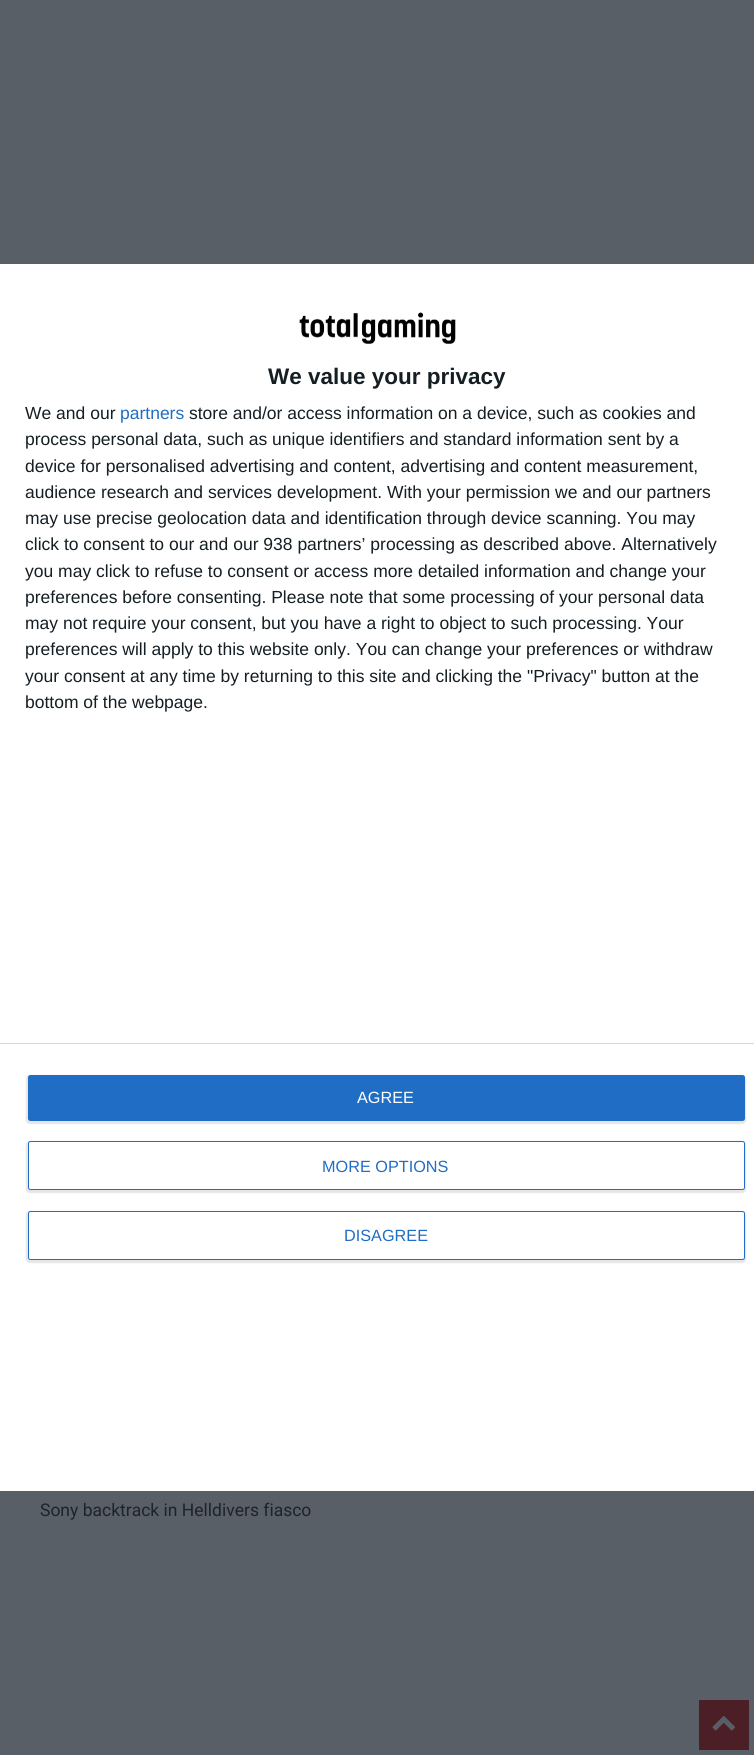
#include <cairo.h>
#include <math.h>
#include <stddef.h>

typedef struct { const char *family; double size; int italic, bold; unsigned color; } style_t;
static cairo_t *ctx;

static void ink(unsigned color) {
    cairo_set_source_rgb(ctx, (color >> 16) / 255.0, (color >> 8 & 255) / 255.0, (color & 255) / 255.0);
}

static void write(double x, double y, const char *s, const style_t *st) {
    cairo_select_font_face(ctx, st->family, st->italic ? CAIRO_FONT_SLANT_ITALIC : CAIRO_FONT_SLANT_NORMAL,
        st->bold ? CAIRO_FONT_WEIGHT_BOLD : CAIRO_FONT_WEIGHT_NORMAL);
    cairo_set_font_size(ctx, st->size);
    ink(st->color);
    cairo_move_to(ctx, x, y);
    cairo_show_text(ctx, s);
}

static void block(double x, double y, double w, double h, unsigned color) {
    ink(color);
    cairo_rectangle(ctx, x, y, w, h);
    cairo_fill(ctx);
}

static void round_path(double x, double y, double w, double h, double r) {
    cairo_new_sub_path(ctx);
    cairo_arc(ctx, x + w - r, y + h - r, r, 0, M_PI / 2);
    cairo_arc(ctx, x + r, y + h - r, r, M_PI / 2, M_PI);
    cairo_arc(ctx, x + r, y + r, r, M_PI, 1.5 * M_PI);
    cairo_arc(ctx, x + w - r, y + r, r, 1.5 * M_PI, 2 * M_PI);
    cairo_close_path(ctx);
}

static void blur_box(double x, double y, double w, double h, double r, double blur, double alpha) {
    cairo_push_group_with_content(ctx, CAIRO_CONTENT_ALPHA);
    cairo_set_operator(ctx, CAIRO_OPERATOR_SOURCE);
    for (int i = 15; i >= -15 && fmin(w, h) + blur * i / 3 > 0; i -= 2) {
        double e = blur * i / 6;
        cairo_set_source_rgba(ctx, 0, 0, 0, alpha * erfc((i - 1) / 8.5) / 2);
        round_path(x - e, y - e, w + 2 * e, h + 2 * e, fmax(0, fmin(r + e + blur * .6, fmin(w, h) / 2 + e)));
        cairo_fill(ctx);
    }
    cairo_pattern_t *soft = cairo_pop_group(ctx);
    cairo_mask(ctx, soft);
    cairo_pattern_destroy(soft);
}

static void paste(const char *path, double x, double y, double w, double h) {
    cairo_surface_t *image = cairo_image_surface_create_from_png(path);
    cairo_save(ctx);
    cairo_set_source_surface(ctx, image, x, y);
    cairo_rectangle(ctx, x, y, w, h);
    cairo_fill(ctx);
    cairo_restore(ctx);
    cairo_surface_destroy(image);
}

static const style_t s1 = {"Liberation Sans", 22.5, 0, 1, 0x141e23};
static const style_t s2 = {"Liberation Sans", 17.5, 0, 0, 0x141e23};
static const style_t s3 = {"Liberation Sans", 17.5, 0, 0, 0x206dc5};
static const style_t s4 = {"Liberation Sans", 16.25, 0, 0, 0xffffff};
static const style_t s5 = {"Liberation Sans", 16.25, 0, 0, 0x206dc5};
static const style_t s6 = {"Roboto", 17.5, 0, 0, 0x1d232b};

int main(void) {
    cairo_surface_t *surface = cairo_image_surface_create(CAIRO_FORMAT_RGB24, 754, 1755);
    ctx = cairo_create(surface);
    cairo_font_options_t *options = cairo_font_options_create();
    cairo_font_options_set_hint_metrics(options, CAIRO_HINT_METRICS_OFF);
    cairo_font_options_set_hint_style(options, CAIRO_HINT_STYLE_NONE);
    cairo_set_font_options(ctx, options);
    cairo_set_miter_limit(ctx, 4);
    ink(0x595f67);
    cairo_paint(ctx);
    block(0, 264, 754, 1227, 0xffffff);
    paste("pic1.png", 299, 312, 157, 32);
    write(268, 384, "We value your privacy", &s1);
    write(25, 419, "We and our", &s2);
    write(120, 419, "partners", &s3);
    write(189, 419, "store and/or access information on a device, such as cookies and", &s2);
    write(25, 445, "process personal data, such as unique identifiers and standard information sent by a", &s2);
    write(25, 472, "device for personalised advertising and content, advertising and content measurement,", &s2);
    write(25, 498, "audience research and services development. With your permission we and our partners", &s2);
    write(25, 524, "may use precise geolocation data and identification through device scanning. You may", &s2);
    write(25, 550, "click to consent to our and our 938 partners’ processing as described above. Alternatively", &s2);
    write(25, 577, "you may click to refuse to consent or access more detailed information and change your", &s2);
    write(25, 603, "preferences before consenting. Please note that some processing of your personal data", &s2);
    write(25, 629, "may not require your consent, but you have a right to object to such processing. Your", &s2);
    write(25, 655, "preferences will apply to this website only. You can change your preferences or withdraw", &s2);
    write(25, 682, "your consent at any time by returning to this site and clicking the \"Privacy\" button at the", &s2);
    write(25, 708, "bottom of the webpage.", &s2);
    block(0, 1043, 754, 1, 0xd8d8d8);
    ink(0x000000);
    blur_box(26, 1075, 720, 49, 4, 0.5, 0.1);
    ink(0x206dc5);
    round_path(28, 1075, 717, 46, 2.5);
    cairo_fill(ctx);
    write(357, 1103, "AGREE", &s4);
    ink(0x000000);
    blur_box(26, 1141, 720, 52, 4, 0.5, 0.1);
    ink(0xffffff);
    round_path(28.5, 1141.5, 716, 48, 2);
    cairo_fill_preserve(ctx);
    ink(0x206dc5);
    cairo_set_line_width(ctx, 1);
    cairo_stroke(ctx);
    write(322, 1172, "MORE OPTIONS", &s5);
    ink(0x000000);
    blur_box(26, 1211, 720, 52, 4, 0.5, 0.1);
    ink(0xffffff);
    round_path(28.5, 1211.5, 716, 48, 2);
    cairo_fill_preserve(ctx);
    ink(0x206dc5);
    cairo_stroke(ctx);
    write(344, 1241, "DISAGREE", &s5);
    write(40, 1516, "Sony backtrack in Helldivers fiasco", &s6);
    block(699, 1700, 50, 50, 0x4c1f27);
    paste("pic2.png", 712, 1716, 23, 15);
    cairo_surface_write_to_png(surface, "screenshot.png");
    cairo_font_options_destroy(options);
    cairo_destroy(ctx);
    cairo_surface_destroy(surface);
    return 0;
}
